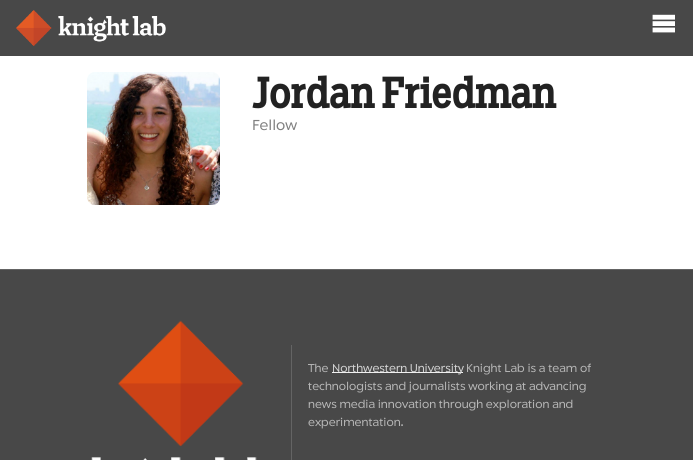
#include <cairo.h>
#include <math.h>
#include <stddef.h>

typedef struct { const char *family; double size; int italic, bold; unsigned color; } style_t;
static cairo_t *ctx;

static void ink(unsigned color) {
    cairo_set_source_rgb(ctx, (color >> 16) / 255.0, (color >> 8 & 255) / 255.0, (color & 255) / 255.0);
}

static void write(double x, double y, const char *s, const style_t *st) {
    cairo_select_font_face(ctx, st->family, st->italic ? CAIRO_FONT_SLANT_ITALIC : CAIRO_FONT_SLANT_NORMAL,
        st->bold ? CAIRO_FONT_WEIGHT_BOLD : CAIRO_FONT_WEIGHT_NORMAL);
    cairo_set_font_size(ctx, st->size);
    ink(st->color);
    cairo_move_to(ctx, x, y);
    cairo_show_text(ctx, s);
}

static void block(double x, double y, double w, double h, unsigned color) {
    ink(color);
    cairo_rectangle(ctx, x, y, w, h);
    cairo_fill(ctx);
}

static void paste(const char *path, double x, double y, double w, double h) {
    cairo_surface_t *image = cairo_image_surface_create_from_png(path);
    cairo_save(ctx);
    cairo_set_source_surface(ctx, image, x, y);
    cairo_rectangle(ctx, x, y, w, h);
    cairo_fill(ctx);
    cairo_restore(ctx);
    cairo_surface_destroy(image);
}

static const style_t s1 = {"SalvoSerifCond", 40.75, 0, 1, 0x222222};
static const style_t s2 = {"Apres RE", 14, 0, 0, 0x808080};
static const style_t s3 = {"Apres RE", 11.05, 0, 0, 0xb8b8b8};
static const style_t s4 = {"Apres RE", 11.05, 0, 0, 0xd4d4d4};

int main(void) {
    cairo_surface_t *surface = cairo_image_surface_create(CAIRO_FORMAT_RGB24, 693, 460);
    ctx = cairo_create(surface);
    cairo_font_options_t *options = cairo_font_options_create();
    cairo_font_options_set_hint_metrics(options, CAIRO_HINT_METRICS_OFF);
    cairo_font_options_set_hint_style(options, CAIRO_HINT_STYLE_NONE);
    cairo_set_font_options(ctx, options);
    cairo_set_miter_limit(ctx, 4);
    cairo_pattern_t *gradient;
    ink(0xffffff);
    cairo_paint(ctx);
    block(0, 0, 693, 56, 0x484848);
    paste("pic1.png", 16, 10, 150, 36);
    paste("pic2.png", 652, 14, 23, 19);
    paste("pic3.png", 87, 72, 133, 133);
    write(252, 108, "Jordan Friedman", &s1);
    write(252, 130, "Fellow", &s2);
    block(0, 270, 693, 190, 0x484848);
    block(0, 269, 693, 1, 0x646464);
    paste("pic4.png", 91, 320, 166, 140);
    block(291, 345, 1, 115, 0x646464);
    write(308, 372, "The", &s3);
    gradient = cairo_pattern_create_linear(398, 375, 398, 364);
    cairo_pattern_add_color_stop_rgba(gradient, 0, 0.282, 0.282, 0.282, 1);
    cairo_pattern_add_color_stop_rgba(gradient, 0.18, 0.282, 0.282, 0.282, 1);
    cairo_pattern_add_color_stop_rgba(gradient, 0.18, 0.941, 0.941, 0.941, 1);
    cairo_pattern_add_color_stop_rgba(gradient, 0.27, 0.941, 0.941, 0.941, 1);
    cairo_pattern_add_color_stop_rgba(gradient, 0.27, 0.282, 0.282, 0.282, 1);
    cairo_set_source(ctx, gradient);
    cairo_pattern_destroy(gradient);
    cairo_rectangle(ctx, 332, 372, 131, 1);
    cairo_fill(ctx);
    write(332, 372, "Northwestern University", &s4);
    write(466, 372, "Knight Lab is a team of", &s3);
    write(308, 390, "technologists and journalists working at advancing", &s3);
    write(308, 408, "news media innovation through exploration and", &s3);
    write(308, 426, "experimentation.", &s3);
    cairo_surface_write_to_png(surface, "screenshot.png");
    cairo_font_options_destroy(options);
    cairo_destroy(ctx);
    cairo_surface_destroy(surface);
    return 0;
}
